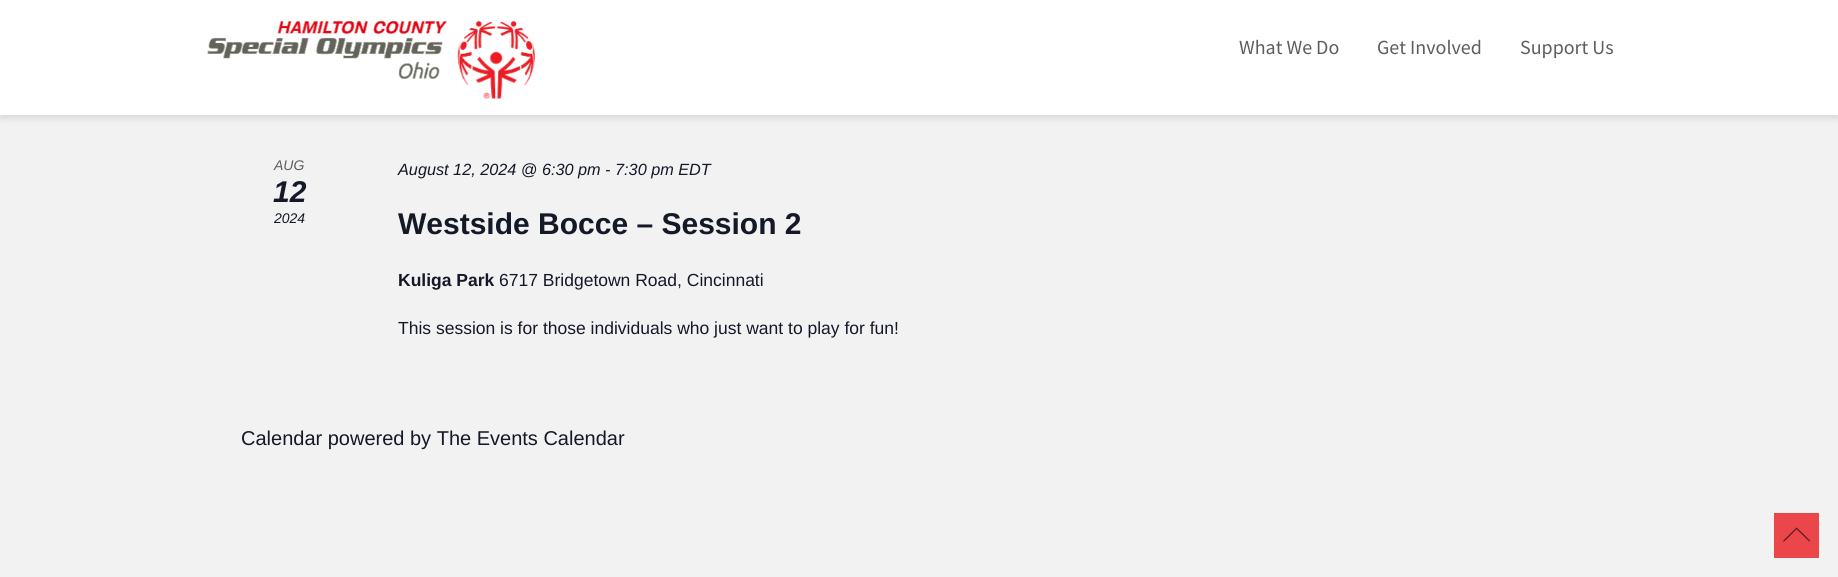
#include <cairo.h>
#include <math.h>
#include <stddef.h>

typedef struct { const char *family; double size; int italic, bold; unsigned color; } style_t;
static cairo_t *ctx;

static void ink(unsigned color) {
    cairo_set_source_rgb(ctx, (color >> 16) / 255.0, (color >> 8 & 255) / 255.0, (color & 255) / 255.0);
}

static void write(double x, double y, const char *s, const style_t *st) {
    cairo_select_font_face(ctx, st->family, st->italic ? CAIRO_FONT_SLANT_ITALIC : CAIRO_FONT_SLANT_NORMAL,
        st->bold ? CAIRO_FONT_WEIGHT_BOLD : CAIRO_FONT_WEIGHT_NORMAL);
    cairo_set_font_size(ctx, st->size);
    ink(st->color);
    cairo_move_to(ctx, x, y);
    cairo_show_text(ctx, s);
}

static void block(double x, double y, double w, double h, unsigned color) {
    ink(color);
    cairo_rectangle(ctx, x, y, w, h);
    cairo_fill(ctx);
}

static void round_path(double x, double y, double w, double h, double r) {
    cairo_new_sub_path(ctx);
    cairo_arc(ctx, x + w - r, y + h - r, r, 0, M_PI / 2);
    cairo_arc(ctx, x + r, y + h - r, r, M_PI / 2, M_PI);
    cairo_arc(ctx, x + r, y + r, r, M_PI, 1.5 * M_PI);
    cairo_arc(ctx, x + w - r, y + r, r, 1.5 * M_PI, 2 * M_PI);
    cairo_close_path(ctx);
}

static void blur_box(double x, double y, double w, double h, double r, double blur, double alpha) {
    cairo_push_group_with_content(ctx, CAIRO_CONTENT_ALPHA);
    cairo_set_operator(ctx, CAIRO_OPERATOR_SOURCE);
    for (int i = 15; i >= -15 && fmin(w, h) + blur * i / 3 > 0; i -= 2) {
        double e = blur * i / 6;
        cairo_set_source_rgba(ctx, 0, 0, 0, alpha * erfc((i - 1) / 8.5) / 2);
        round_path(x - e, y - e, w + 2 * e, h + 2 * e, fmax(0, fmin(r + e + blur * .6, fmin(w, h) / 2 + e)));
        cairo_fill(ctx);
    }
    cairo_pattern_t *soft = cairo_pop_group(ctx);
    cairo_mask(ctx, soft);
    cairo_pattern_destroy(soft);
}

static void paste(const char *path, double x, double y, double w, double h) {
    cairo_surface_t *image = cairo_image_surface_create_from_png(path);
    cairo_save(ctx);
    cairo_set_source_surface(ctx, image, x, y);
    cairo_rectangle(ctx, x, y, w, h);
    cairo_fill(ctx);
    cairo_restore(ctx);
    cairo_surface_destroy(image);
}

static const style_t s1 = {"Source Sans Pro", 20, 0, 0, 0x5d5d5d};
static const style_t s2 = {"Liberation Sans", 14, 1, 0, 0x5d5d5d};
static const style_t s3 = {"Liberation Sans", 30, 1, 1, 0x141827};
static const style_t s4 = {"Liberation Sans", 14, 1, 0, 0x141827};
static const style_t s5 = {"Liberation Sans", 16.25, 1, 0, 0x141827};
static const style_t s6 = {"Liberation Sans", 30, 0, 1, 0x141827};
static const style_t s7 = {"Liberation Sans", 17.5, 0, 1, 0x141827};
static const style_t s8 = {"Liberation Sans", 17.5, 0, 0, 0x141827};
static const style_t s9 = {"Liberation Sans", 20, 0, 0, 0x141827};

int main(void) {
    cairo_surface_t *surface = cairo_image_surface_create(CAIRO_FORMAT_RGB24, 1838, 577);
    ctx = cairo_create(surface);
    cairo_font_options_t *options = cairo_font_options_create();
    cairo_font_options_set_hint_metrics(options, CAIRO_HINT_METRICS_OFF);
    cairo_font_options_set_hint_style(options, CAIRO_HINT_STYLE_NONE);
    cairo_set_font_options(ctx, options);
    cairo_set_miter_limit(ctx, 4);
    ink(0xf2f2f2);
    cairo_paint(ctx);
    ink(0x000000);
    blur_box(0, 4, 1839, 115, 0, 3, 0.1);
    block(0, 0, 1838, 115, 0xffffff);
    paste("pic1.png", 207, 21, 328, 78);
    write(1239, 54, "What We Do", &s1);
    write(1377, 54, "Get Involved", &s1);
    write(1520, 54, "Support Us", &s1);
    write(274, 170, "AUG", &s2);
    write(273, 202, "12", &s3);
    write(274, 223, "2024", &s4);
    write(398, 175, "August 12, 2024 @ 6:30 pm - 7:30 pm EDT", &s5);
    write(398, 234, "Westside Bocce – Session 2", &s6);
    write(398, 286, "Kuliga Park", &s7);
    write(499, 286, "6717 Bridgetown Road, Cincinnati", &s8);
    write(398, 334, "This session is for those individuals who just want to play for fun!", &s8);
    write(241, 445, "Calendar powered by The Events Calendar", &s9);
    block(1774, 513, 45, 45, 0xeb464a);
    paste("pic2.png", 1783, 527, 28, 15);
    cairo_surface_write_to_png(surface, "screenshot.png");
    cairo_font_options_destroy(options);
    cairo_destroy(ctx);
    cairo_surface_destroy(surface);
    return 0;
}
